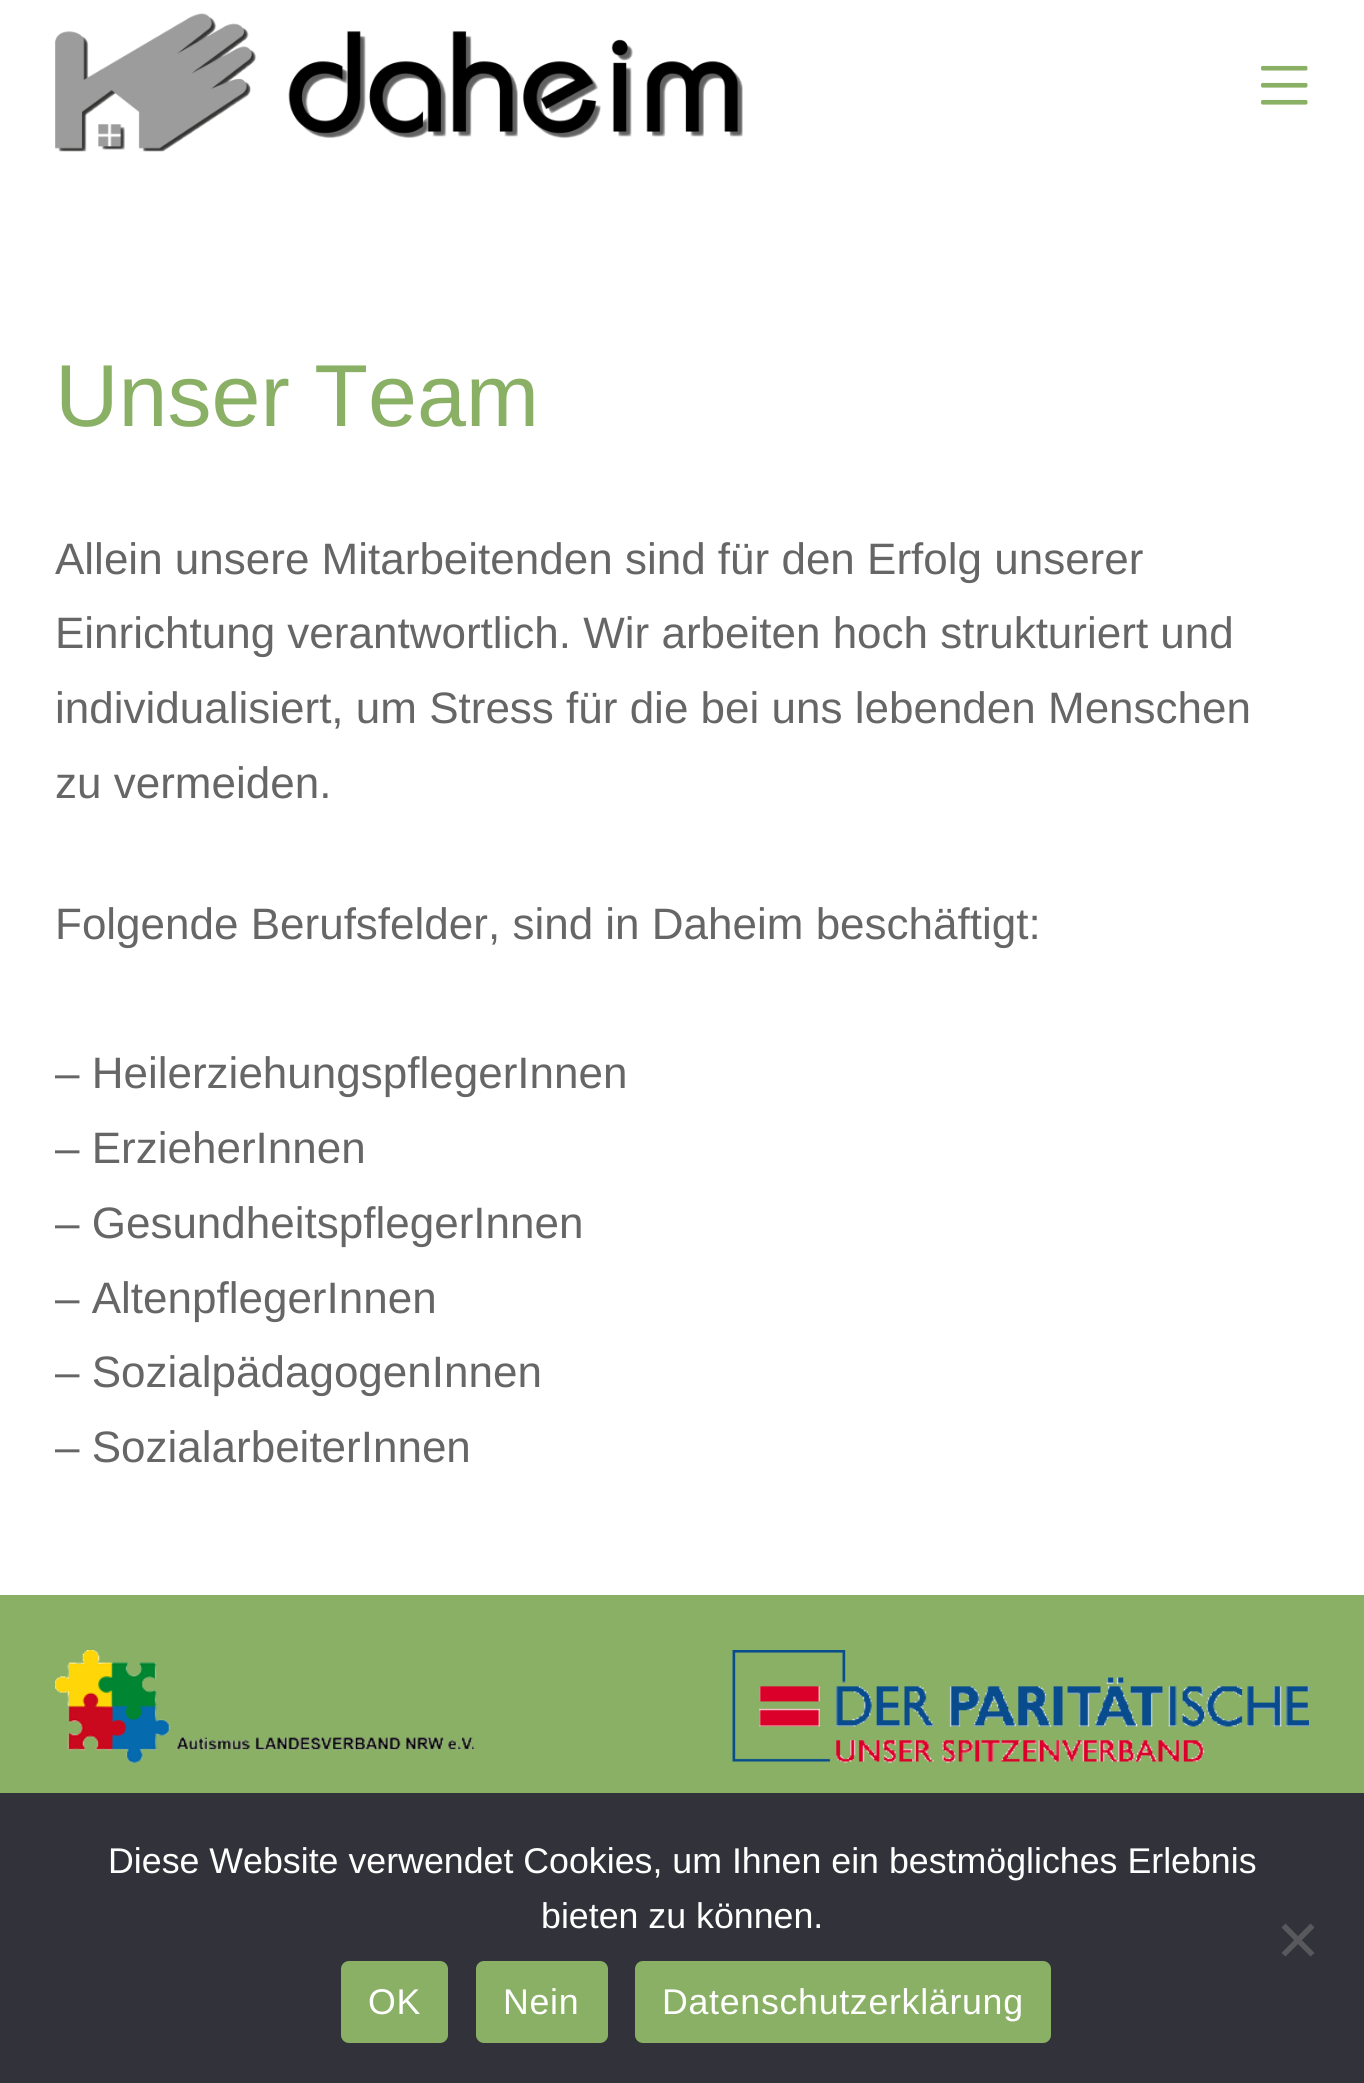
#include <cairo.h>
#include <math.h>
#include <stddef.h>

typedef struct { const char *family; double size; int italic, bold; unsigned color; } style_t;
static cairo_t *ctx;

static void ink(unsigned color) {
    cairo_set_source_rgb(ctx, (color >> 16) / 255.0, (color >> 8 & 255) / 255.0, (color & 255) / 255.0);
}

static void write(double x, double y, const char *s, const style_t *st) {
    cairo_select_font_face(ctx, st->family, st->italic ? CAIRO_FONT_SLANT_ITALIC : CAIRO_FONT_SLANT_NORMAL,
        st->bold ? CAIRO_FONT_WEIGHT_BOLD : CAIRO_FONT_WEIGHT_NORMAL);
    cairo_set_font_size(ctx, st->size);
    ink(st->color);
    cairo_move_to(ctx, x, y);
    cairo_show_text(ctx, s);
}

static void write_spaced(double x, double y, const char *s, double letter, double word) {
    cairo_move_to(ctx, x, y);
    while (*s) {
        char ch[5] = {0};
        int n = 0;
        do ch[n++] = *s++; while ((*s & 0xC0) == 0x80);
        cairo_show_text(ctx, ch);
        cairo_rel_move_to(ctx, letter + word * (*ch == ' '), 0);
    }
}

static void block(double x, double y, double w, double h, unsigned color) {
    ink(color);
    cairo_rectangle(ctx, x, y, w, h);
    cairo_fill(ctx);
}

static void round_path(double x, double y, double w, double h, double r) {
    cairo_new_sub_path(ctx);
    cairo_arc(ctx, x + w - r, y + h - r, r, 0, M_PI / 2);
    cairo_arc(ctx, x + r, y + h - r, r, M_PI / 2, M_PI);
    cairo_arc(ctx, x + r, y + r, r, M_PI, 1.5 * M_PI);
    cairo_arc(ctx, x + w - r, y + r, r, 1.5 * M_PI, 2 * M_PI);
    cairo_close_path(ctx);
}

static void paste(const char *path, double x, double y, double w, double h) {
    cairo_surface_t *image = cairo_image_surface_create_from_png(path);
    cairo_save(ctx);
    cairo_set_source_surface(ctx, image, x, y);
    cairo_rectangle(ctx, x, y, w, h);
    cairo_fill(ctx);
    cairo_restore(ctx);
    cairo_surface_destroy(image);
}

static const style_t s1 = {"Liberation Sans", 88, 0, 0, 0x89b064};
static const style_t s2 = {"Liberation Sans", 44, 0, 0, 0x666666};
static const style_t s3 = {"Liberation Sans", 35.75, 0, 0, 0xffffff};

int main(void) {
    cairo_surface_t *surface = cairo_image_surface_create(CAIRO_FORMAT_RGB24, 1364, 2083);
    ctx = cairo_create(surface);
    cairo_font_options_t *options = cairo_font_options_create();
    cairo_font_options_set_hint_metrics(options, CAIRO_HINT_METRICS_OFF);
    cairo_font_options_set_hint_style(options, CAIRO_HINT_STYLE_NONE);
    cairo_set_font_options(ctx, options);
    cairo_set_miter_limit(ctx, 4);
    ink(0xffffff);
    cairo_paint(ctx);
    paste("pic1.png", 55, 13, 688, 139);
    paste("pic2.png", 1261, 65, 47, 40);
    write(55, 426, "Unser Team", &s1);
    write(55, 574, "Allein unsere Mitarbeitenden sind für den Erfolg unserer", &s2);
    write(55, 648, "Einrichtung verantwortlich. Wir arbeiten hoch strukturiert und", &s2);
    write(55, 723, "individualisiert, um Stress für die bei uns lebenden Menschen", &s2);
    write(55, 798, "zu vermeiden.", &s2);
    write(55, 939, "Folgende Berufsfelder, sind in Daheim beschäftigt:", &s2);
    write(55, 1088, "– HeilerziehungspflegerInnen", &s2);
    write(55, 1163, "– ErzieherInnen", &s2);
    write(55, 1238, "– GesundheitspflegerInnen", &s2);
    write(55, 1313, "– AltenpflegerInnen", &s2);
    write(55, 1387, "– SozialpädagogenInnen", &s2);
    write(55, 1462, "– SozialarbeiterInnen", &s2);
    block(0, 1595, 1364, 198, 0x89b064);
    paste("pic3.png", 55, 1650, 1254, 113);
    block(0, 1793, 1364, 290, 0x32323a);
    write(108, 1873, "Diese Website verwendet Cookies, um Ihnen ein bestmögliches Erlebnis", &s3);
    write(541, 1928, "bieten zu können.", &s3);
    ink(0x59595d);
    cairo_new_path(ctx);
    cairo_move_to(ctx, 1310.5, 1923.5);
    cairo_line_to(ctx, 1314.5, 1927.5);
    cairo_line_to(ctx, 1285.5, 1956.5);
    cairo_line_to(ctx, 1281.5, 1953);
    cairo_close_path(ctx);
    cairo_fill(ctx);
    cairo_new_path(ctx);
    cairo_move_to(ctx, 1281.5, 1927.5);
    cairo_line_to(ctx, 1285.5, 1923.5);
    cairo_line_to(ctx, 1314.5, 1953);
    cairo_line_to(ctx, 1310.5, 1956.5);
    cairo_close_path(ctx);
    cairo_fill(ctx);
    ink(0x89b064);
    round_path(341, 1961, 107, 82, 8);
    cairo_fill(ctx);
    ink(0xffffff);
    write_spaced(368, 2014, "OK", 0.7, 0);
    ink(0x89b064);
    round_path(476, 1961, 132, 82, 8);
    cairo_fill(ctx);
    ink(0xffffff);
    write_spaced(503, 2014, "Nein", 0.7, 0);
    ink(0x89b064);
    round_path(635, 1961, 416, 82, 8);
    cairo_fill(ctx);
    ink(0xffffff);
    write_spaced(662, 2014, "Datenschutzerklärung", 0.7, 0);
    cairo_surface_write_to_png(surface, "screenshot.png");
    cairo_font_options_destroy(options);
    cairo_destroy(ctx);
    cairo_surface_destroy(surface);
    return 0;
}
